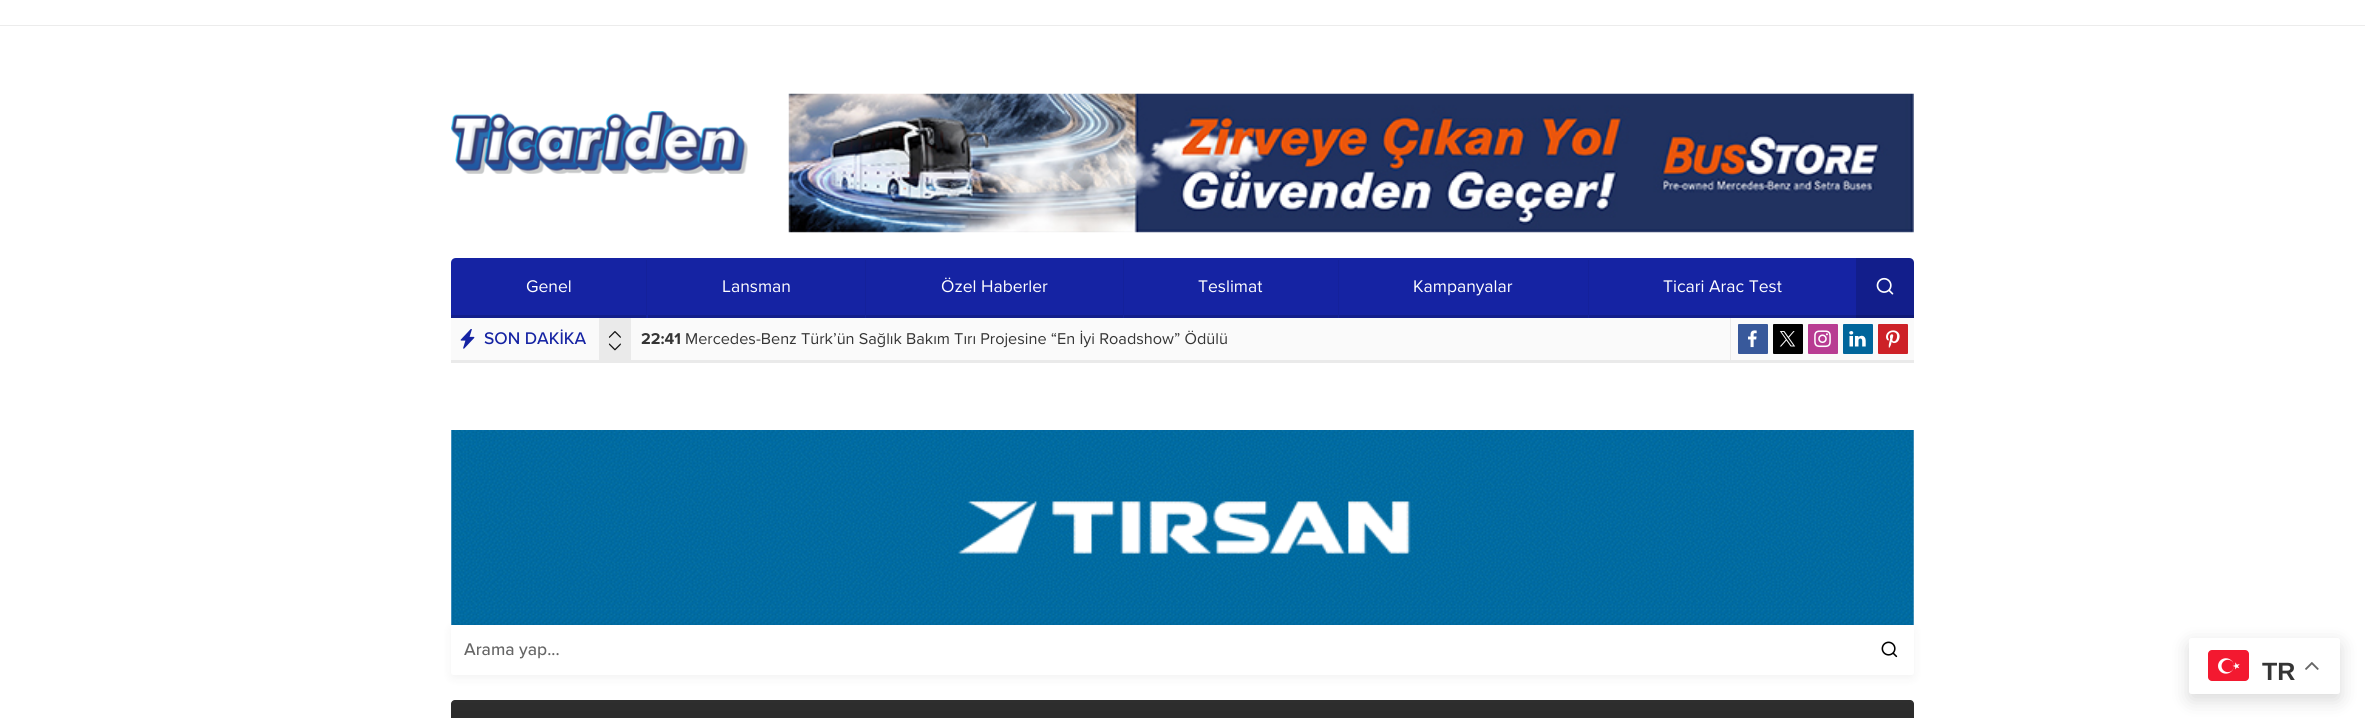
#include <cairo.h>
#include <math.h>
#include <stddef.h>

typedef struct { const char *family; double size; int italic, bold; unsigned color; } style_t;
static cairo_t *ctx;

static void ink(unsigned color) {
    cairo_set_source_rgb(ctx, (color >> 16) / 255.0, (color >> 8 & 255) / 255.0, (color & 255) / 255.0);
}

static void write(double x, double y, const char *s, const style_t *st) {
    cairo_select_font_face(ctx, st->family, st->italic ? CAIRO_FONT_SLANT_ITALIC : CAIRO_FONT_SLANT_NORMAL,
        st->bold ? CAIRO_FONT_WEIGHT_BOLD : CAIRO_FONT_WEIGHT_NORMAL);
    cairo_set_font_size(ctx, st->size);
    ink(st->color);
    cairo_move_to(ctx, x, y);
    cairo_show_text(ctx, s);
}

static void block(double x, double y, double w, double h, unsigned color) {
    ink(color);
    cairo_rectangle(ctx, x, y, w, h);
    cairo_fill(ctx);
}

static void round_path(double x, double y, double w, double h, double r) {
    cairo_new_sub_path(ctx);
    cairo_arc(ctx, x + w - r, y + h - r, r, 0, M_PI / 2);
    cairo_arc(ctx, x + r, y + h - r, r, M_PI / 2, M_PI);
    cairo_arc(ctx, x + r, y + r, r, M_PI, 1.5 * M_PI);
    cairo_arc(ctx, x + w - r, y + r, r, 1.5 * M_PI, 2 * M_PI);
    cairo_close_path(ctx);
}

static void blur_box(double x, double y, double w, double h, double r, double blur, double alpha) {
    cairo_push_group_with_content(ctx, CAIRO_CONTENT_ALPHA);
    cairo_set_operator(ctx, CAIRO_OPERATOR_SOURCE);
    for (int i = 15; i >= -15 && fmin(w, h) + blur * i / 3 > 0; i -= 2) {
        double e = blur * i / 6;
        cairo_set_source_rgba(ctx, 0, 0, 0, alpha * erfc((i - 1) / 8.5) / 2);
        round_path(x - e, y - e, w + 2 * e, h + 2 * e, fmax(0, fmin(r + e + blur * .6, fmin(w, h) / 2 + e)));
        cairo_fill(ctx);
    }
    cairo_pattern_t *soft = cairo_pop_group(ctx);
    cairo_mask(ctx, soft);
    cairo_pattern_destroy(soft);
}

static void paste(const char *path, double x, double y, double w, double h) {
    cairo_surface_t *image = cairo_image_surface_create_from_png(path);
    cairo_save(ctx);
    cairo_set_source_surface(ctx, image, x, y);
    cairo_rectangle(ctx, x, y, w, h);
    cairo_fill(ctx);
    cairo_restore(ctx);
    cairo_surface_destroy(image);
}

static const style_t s1 = {"Proxima Nova", 17.5, 0, 0, 0xffffff};
static const style_t s2 = {"Proxima Nova Medium", 17.5, 0, 0, 0x1523a3};
static const style_t s3 = {"Proxima Nova", 16.25, 0, 1, 0x353535};
static const style_t s4 = {"Proxima Nova", 16.25, 0, 0, 0x353535};
static const style_t s5 = {"Proxima Nova Medium", 17.5, 0, 0, 0x666666};
static const style_t s6 = {"Liberation Sans", 25, 0, 1, 0x353535};

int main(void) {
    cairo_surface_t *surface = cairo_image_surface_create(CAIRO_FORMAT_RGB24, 2365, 718);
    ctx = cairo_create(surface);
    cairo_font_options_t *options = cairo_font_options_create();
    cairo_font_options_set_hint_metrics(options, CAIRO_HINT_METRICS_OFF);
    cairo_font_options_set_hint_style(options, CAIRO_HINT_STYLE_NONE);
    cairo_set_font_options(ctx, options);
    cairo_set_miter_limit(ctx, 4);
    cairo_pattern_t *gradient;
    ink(0xffffff);
    cairo_paint(ctx);
    block(0, 25, 2365, 1, 0xececec);
    paste("pic1.png", 451, 111, 297, 63);
    paste("pic2.png", 788, 93, 1126, 140);
    ink(0x1523a3);
    cairo_new_path(ctx);
    cairo_move_to(ctx, 456, 258);
    cairo_line_to(ctx, 1909, 258);
    cairo_curve_to(ctx, 1912, 258, 1914, 260, 1914, 263);
    cairo_line_to(ctx, 1914, 318);
    cairo_line_to(ctx, 451, 318);
    cairo_line_to(ctx, 451, 263);
    cairo_curve_to(ctx, 451, 260, 453, 258, 456, 258);
    cairo_close_path(ctx);
    cairo_fill(ctx);
    block(451, 315, 195, 3, 0x121e8b);
    write(526, 292, "Genel", &s1);
    block(646, 260, 1, 58, 0x14219b);
    block(648, 315, 217, 3, 0x121e8b);
    write(722, 292, "Lansman", &s1);
    block(865, 260, 1, 58, 0x14219b);
    block(866, 315, 257, 3, 0x121e8b);
    write(941, 292, "Özel Haberler", &s1);
    block(1123, 260, 1, 58, 0x14219b);
    block(1124, 315, 214, 3, 0x121e8b);
    write(1198, 292, "Teslimat", &s1);
    block(1338, 260, 1, 58, 0x14219b);
    block(1339, 315, 249, 3, 0x121e8b);
    write(1413, 292, "Kampanyalar", &s1);
    block(1588, 260, 1, 58, 0x14219b);
    block(1589, 315, 267, 3, 0x121e8b);
    write(1663, 292, "Ticari Arac Test", &s1);
    cairo_set_source_rgba(ctx, 0, 0, 0, 0.15);
    cairo_new_path(ctx);
    cairo_move_to(ctx, 1856, 258);
    cairo_line_to(ctx, 1909, 258);
    cairo_curve_to(ctx, 1912, 258, 1914, 260, 1914, 263);
    cairo_line_to(ctx, 1914, 318);
    cairo_line_to(ctx, 1856, 318);
    cairo_close_path(ctx);
    cairo_fill(ctx);
    block(1856, 315, 58, 3, 0x0f1976);
    paste("pic3.png", 1876, 277, 18, 18);
    block(451, 318, 1463, 42, 0xfafafa);
    block(451, 360, 1463, 3, 0xeaeaea);
    paste("pic4.png", 460, 329, 15, 20);
    write(484, 344, "SON DAKİKA", &s2);
    block(599, 318, 32, 42, 0xeaeaea);
    paste("pic5.png", 608, 331, 13, 7);
    paste("pic6.png", 608, 343, 13, 8);
    write(641, 344, "22:41", &s3);
    write(685, 344, "Mercedes-Benz Türk’ün Sağlık Bakım Tırı Projesine “En İyi Roadshow” Ödülü", &s4);
    block(1730, 318, 1, 42, 0xeaeaea);
    ink(0x38599b);
    round_path(1738, 324, 30, 30, 1);
    cairo_fill(ctx);
    paste("pic7.png", 1748, 330, 9, 18);
    ink(0x000000);
    round_path(1773, 324, 30, 30, 1);
    cairo_fill(ctx);
    paste("pic8.png", 1779, 331, 17, 16);
    ink(0xb83c92);
    round_path(1808, 324, 30, 30, 1);
    cairo_fill(ctx);
    paste("pic9.png", 1814, 330, 17, 18);
    ink(0x00659b);
    round_path(1843, 324, 30, 30, 1);
    cairo_fill(ctx);
    paste("pic10.png", 1849, 331, 17, 16);
    ink(0xcd2127);
    round_path(1878, 324, 30, 30, 1);
    cairo_fill(ctx);
    paste("pic11.png", 1886, 330, 14, 18);
    paste("pic12.png", 451, 430, 1463, 195);
    ink(0x000000);
    blur_box(451, 628, 1463, 50, 2.5, 5, 0.05);
    ink(0xffffff);
    round_path(451, 625, 1463, 50, 2.5);
    cairo_fill(ctx);
    write(464, 655, "Arama yap...", &s5);
    paste("pic13.png", 1881, 641, 17, 17);
    ink(0x333333);
    round_path(451, 700, 1463, 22, 4);
    cairo_fill(ctx);
    gradient = cairo_pattern_create_linear(1183, 700, 1183, 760);
    cairo_pattern_add_color_stop_rgba(gradient, 0, 0, 0, 0, 0.1);
    cairo_pattern_add_color_stop_rgba(gradient, 1, 0, 0, 0, 0.25);
    cairo_set_source(ctx, gradient);
    cairo_pattern_destroy(gradient);
    cairo_new_path(ctx);
    cairo_move_to(ctx, 455, 700);
    cairo_line_to(ctx, 1910, 700);
    cairo_curve_to(ctx, 1912, 700, 1914, 702, 1914, 704);
    cairo_line_to(ctx, 1914, 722);
    cairo_line_to(ctx, 451, 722);
    cairo_line_to(ctx, 451, 704);
    cairo_curve_to(ctx, 451, 702, 453, 700, 455, 700);
    cairo_close_path(ctx);
    cairo_fill(ctx);
    ink(0x000000);
    blur_box(2189, 644, 151, 56, 2.5, 9.5, 0.15);
    ink(0xffffff);
    round_path(2189, 638, 151, 56, 2.5);
    cairo_fill(ctx);
    paste("pic14.png", 2208, 650, 41, 31);
    write(2262, 680, "TR", &s6);
    paste("pic15.png", 2305, 662, 14, 8);
    cairo_surface_write_to_png(surface, "screenshot.png");
    cairo_font_options_destroy(options);
    cairo_destroy(ctx);
    cairo_surface_destroy(surface);
    return 0;
}
